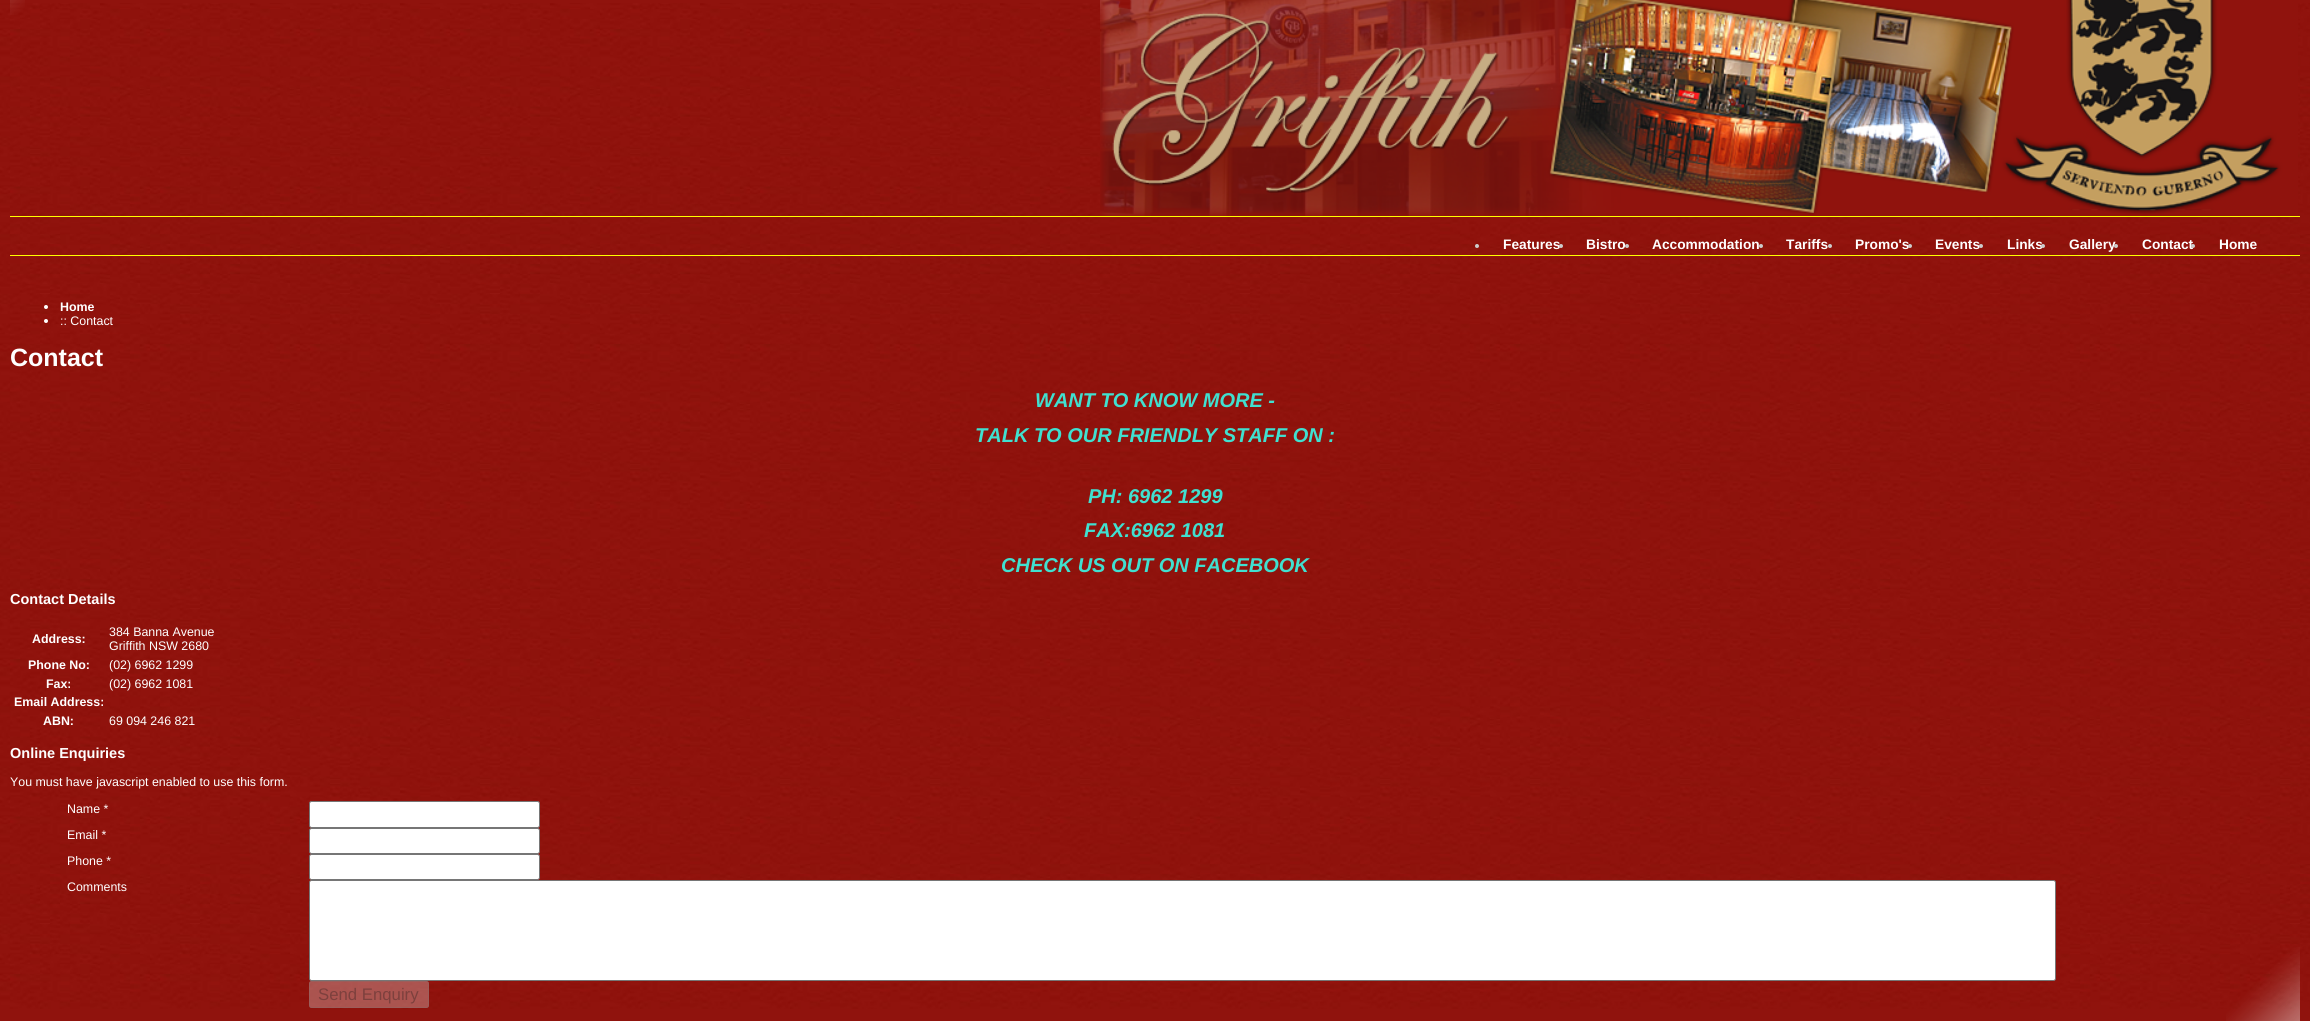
#include <cairo.h>
#include <math.h>
#include <stddef.h>

typedef struct { const char *family; double size; int italic, bold; unsigned color; } style_t;
static cairo_t *ctx;

static void ink(unsigned color) {
    cairo_set_source_rgb(ctx, (color >> 16) / 255.0, (color >> 8 & 255) / 255.0, (color & 255) / 255.0);
}

static void write(double x, double y, const char *s, const style_t *st) {
    cairo_select_font_face(ctx, st->family, st->italic ? CAIRO_FONT_SLANT_ITALIC : CAIRO_FONT_SLANT_NORMAL,
        st->bold ? CAIRO_FONT_WEIGHT_BOLD : CAIRO_FONT_WEIGHT_NORMAL);
    cairo_set_font_size(ctx, st->size);
    ink(st->color);
    cairo_move_to(ctx, x, y);
    cairo_show_text(ctx, s);
}

static void block(double x, double y, double w, double h, unsigned color) {
    ink(color);
    cairo_rectangle(ctx, x, y, w, h);
    cairo_fill(ctx);
}

static void round_path(double x, double y, double w, double h, double r) {
    cairo_new_sub_path(ctx);
    cairo_arc(ctx, x + w - r, y + h - r, r, 0, M_PI / 2);
    cairo_arc(ctx, x + r, y + h - r, r, M_PI / 2, M_PI);
    cairo_arc(ctx, x + r, y + r, r, M_PI, 1.5 * M_PI);
    cairo_arc(ctx, x + w - r, y + r, r, 1.5 * M_PI, 2 * M_PI);
    cairo_close_path(ctx);
}

static void paste(const char *path, double x, double y, double w, double h) {
    cairo_surface_t *image = cairo_image_surface_create_from_png(path);
    cairo_save(ctx);
    cairo_set_source_surface(ctx, image, x, y);
    cairo_rectangle(ctx, x, y, w, h);
    cairo_fill(ctx);
    cairo_restore(ctx);
    cairo_surface_destroy(image);
}

static const style_t s1 = {"Liberation Sans", 13.75, 0, 1, 0xffffff};
static const style_t s2 = {"Liberation Sans", 12.4, 0, 1, 0xffffff};
static const style_t s3 = {"Liberation Sans", 12.4, 0, 0, 0xffffff};
static const style_t s4 = {"Liberation Sans", 25, 0, 1, 0xffffff};
static const style_t s5 = {"Liberation Sans", 20, 1, 1, 0x40e0d0};
static const style_t s6 = {"Liberation Sans", 14.5, 0, 1, 0xffffff};
static const style_t s7 = {"Liberation Sans", 16.75, 0, 0, 0x7d403d};

int main(void) {
    cairo_surface_t *surface = cairo_image_surface_create(CAIRO_FORMAT_RGB24, 2310, 1021);
    ctx = cairo_create(surface);
    cairo_font_options_t *options = cairo_font_options_create();
    cairo_font_options_set_hint_metrics(options, CAIRO_HINT_METRICS_OFF);
    cairo_font_options_set_hint_style(options, CAIRO_HINT_STYLE_NONE);
    cairo_set_font_options(ctx, options);
    cairo_set_miter_limit(ctx, 4);
    ink(0x90130d);
    cairo_paint(ctx);
    paste("pic1.png", 0, 3, 2310, 1006);
    paste("pic2.png", 2226, 947, 74, 74);
    paste("pic3.png", 1100, 0, 1198, 216);
    paste("pic4.png", 10, 0, 15, 15);
    block(10, 216, 2290, 1, 0xffff00);
    block(10, 255, 2290, 1, 0xffff00);
    ink(0xcccccc);
    cairo_arc(ctx, 1477, 246, 2, 0, 2 * M_PI);
    cairo_fill(ctx);
    write(1503, 249, "Features", &s1);
    ink(0xcccccc);
    cairo_new_path(ctx);
    cairo_arc(ctx, 1561, 246, 2, 0, 2 * M_PI);
    cairo_fill(ctx);
    write(1586, 249, "Bistro", &s1);
    ink(0xcccccc);
    cairo_new_path(ctx);
    cairo_arc(ctx, 1627, 246, 2, 0, 2 * M_PI);
    cairo_fill(ctx);
    write(1652, 249, "Accommodation", &s1);
    ink(0xcccccc);
    cairo_new_path(ctx);
    cairo_arc(ctx, 1761, 246, 2, 0, 2 * M_PI);
    cairo_fill(ctx);
    write(1786, 249, "Tariffs", &s1);
    ink(0xcccccc);
    cairo_new_path(ctx);
    cairo_arc(ctx, 1830, 246, 2, 0, 2 * M_PI);
    cairo_fill(ctx);
    write(1855, 249, "Promo's", &s1);
    ink(0xcccccc);
    cairo_new_path(ctx);
    cairo_arc(ctx, 1910, 246, 2, 0, 2 * M_PI);
    cairo_fill(ctx);
    write(1935, 249, "Events", &s1);
    ink(0xcccccc);
    cairo_new_path(ctx);
    cairo_arc(ctx, 1981, 246, 2, 0, 2 * M_PI);
    cairo_fill(ctx);
    write(2007, 249, "Links", &s1);
    ink(0xcccccc);
    cairo_new_path(ctx);
    cairo_arc(ctx, 2043, 246, 2, 0, 2 * M_PI);
    cairo_fill(ctx);
    write(2069, 249, "Gallery", &s1);
    ink(0xcccccc);
    cairo_new_path(ctx);
    cairo_arc(ctx, 2116, 246, 2, 0, 2 * M_PI);
    cairo_fill(ctx);
    write(2142, 249, "Contact", &s1);
    ink(0xcccccc);
    cairo_new_path(ctx);
    cairo_arc(ctx, 2193, 246, 2, 0, 2 * M_PI);
    cairo_fill(ctx);
    write(2219, 249, "Home", &s1);
    cairo_new_path(ctx);
    cairo_arc(ctx, 46, 307, 2, 0, 2 * M_PI);
    cairo_fill(ctx);
    write(60, 311, "Home", &s2);
    cairo_new_path(ctx);
    cairo_arc(ctx, 46, 321, 2, 0, 2 * M_PI);
    cairo_fill(ctx);
    write(60, 325, ":: Contact", &s3);
    write(10, 366, "Contact", &s4);
    write(1035, 407, "WANT TO KNOW MORE -", &s5);
    write(975, 442, "TALK TO OUR FRIENDLY STAFF ON :", &s5);
    write(1088, 503, "PH: 6962 1299", &s5);
    write(1084, 537, "FAX:6962 1081", &s5);
    write(1001, 572, "CHECK US OUT ON FACEBOOK", &s5);
    write(10, 604, "Contact Details", &s6);
    write(32, 643, "Address:", &s2);
    write(109, 636, "384 Banna Avenue", &s3);
    write(109, 650, "Griffith NSW 2680", &s3);
    write(28, 669, "Phone No:", &s2);
    write(109, 669, "(02) 6962 1299", &s3);
    write(46, 688, "Fax:", &s2);
    write(109, 688, "(02) 6962 1081", &s3);
    write(14, 706, "Email Address:", &s2);
    write(43, 725, "ABN:", &s2);
    write(109, 725, "69 094 246 821", &s3);
    write(10, 758, "Online Enquiries", &s6);
    write(10, 786, "You must have javascript enabled to use this form.", &s3);
    write(67, 813, "Name *", &s3);
    round_path(309.5, 801.5, 230, 26, 2);
    cairo_fill_preserve(ctx);
    ink(0x767676);
    cairo_set_line_width(ctx, 1);
    cairo_stroke(ctx);
    write(67, 839, "Email *", &s3);
    round_path(309.5, 828.5, 230, 25, 2);
    cairo_fill_preserve(ctx);
    ink(0x767676);
    cairo_stroke(ctx);
    write(67, 865, "Phone *", &s3);
    round_path(309.5, 854.5, 230, 25, 2);
    cairo_fill_preserve(ctx);
    ink(0x767676);
    cairo_stroke(ctx);
    write(67, 891, "Comments", &s3);
    round_path(309.5, 880.5, 1746, 100, 2);
    cairo_fill_preserve(ctx);
    ink(0x767676);
    cairo_stroke(ctx);
    cairo_set_source_rgba(ctx, 0.937, 0.937, 0.937, 0.3);
    round_path(309, 981, 120, 27, 2.5);
    cairo_fill(ctx);
    round_path(309.5, 981.5, 119, 26, 2);
    cairo_set_source_rgba(ctx, 0.463, 0.463, 0.463, 0.3);
    cairo_stroke(ctx);
    write(318, 1000, "Send Enquiry", &s7);
    cairo_surface_write_to_png(surface, "screenshot.png");
    cairo_font_options_destroy(options);
    cairo_destroy(ctx);
    cairo_surface_destroy(surface);
    return 0;
}
